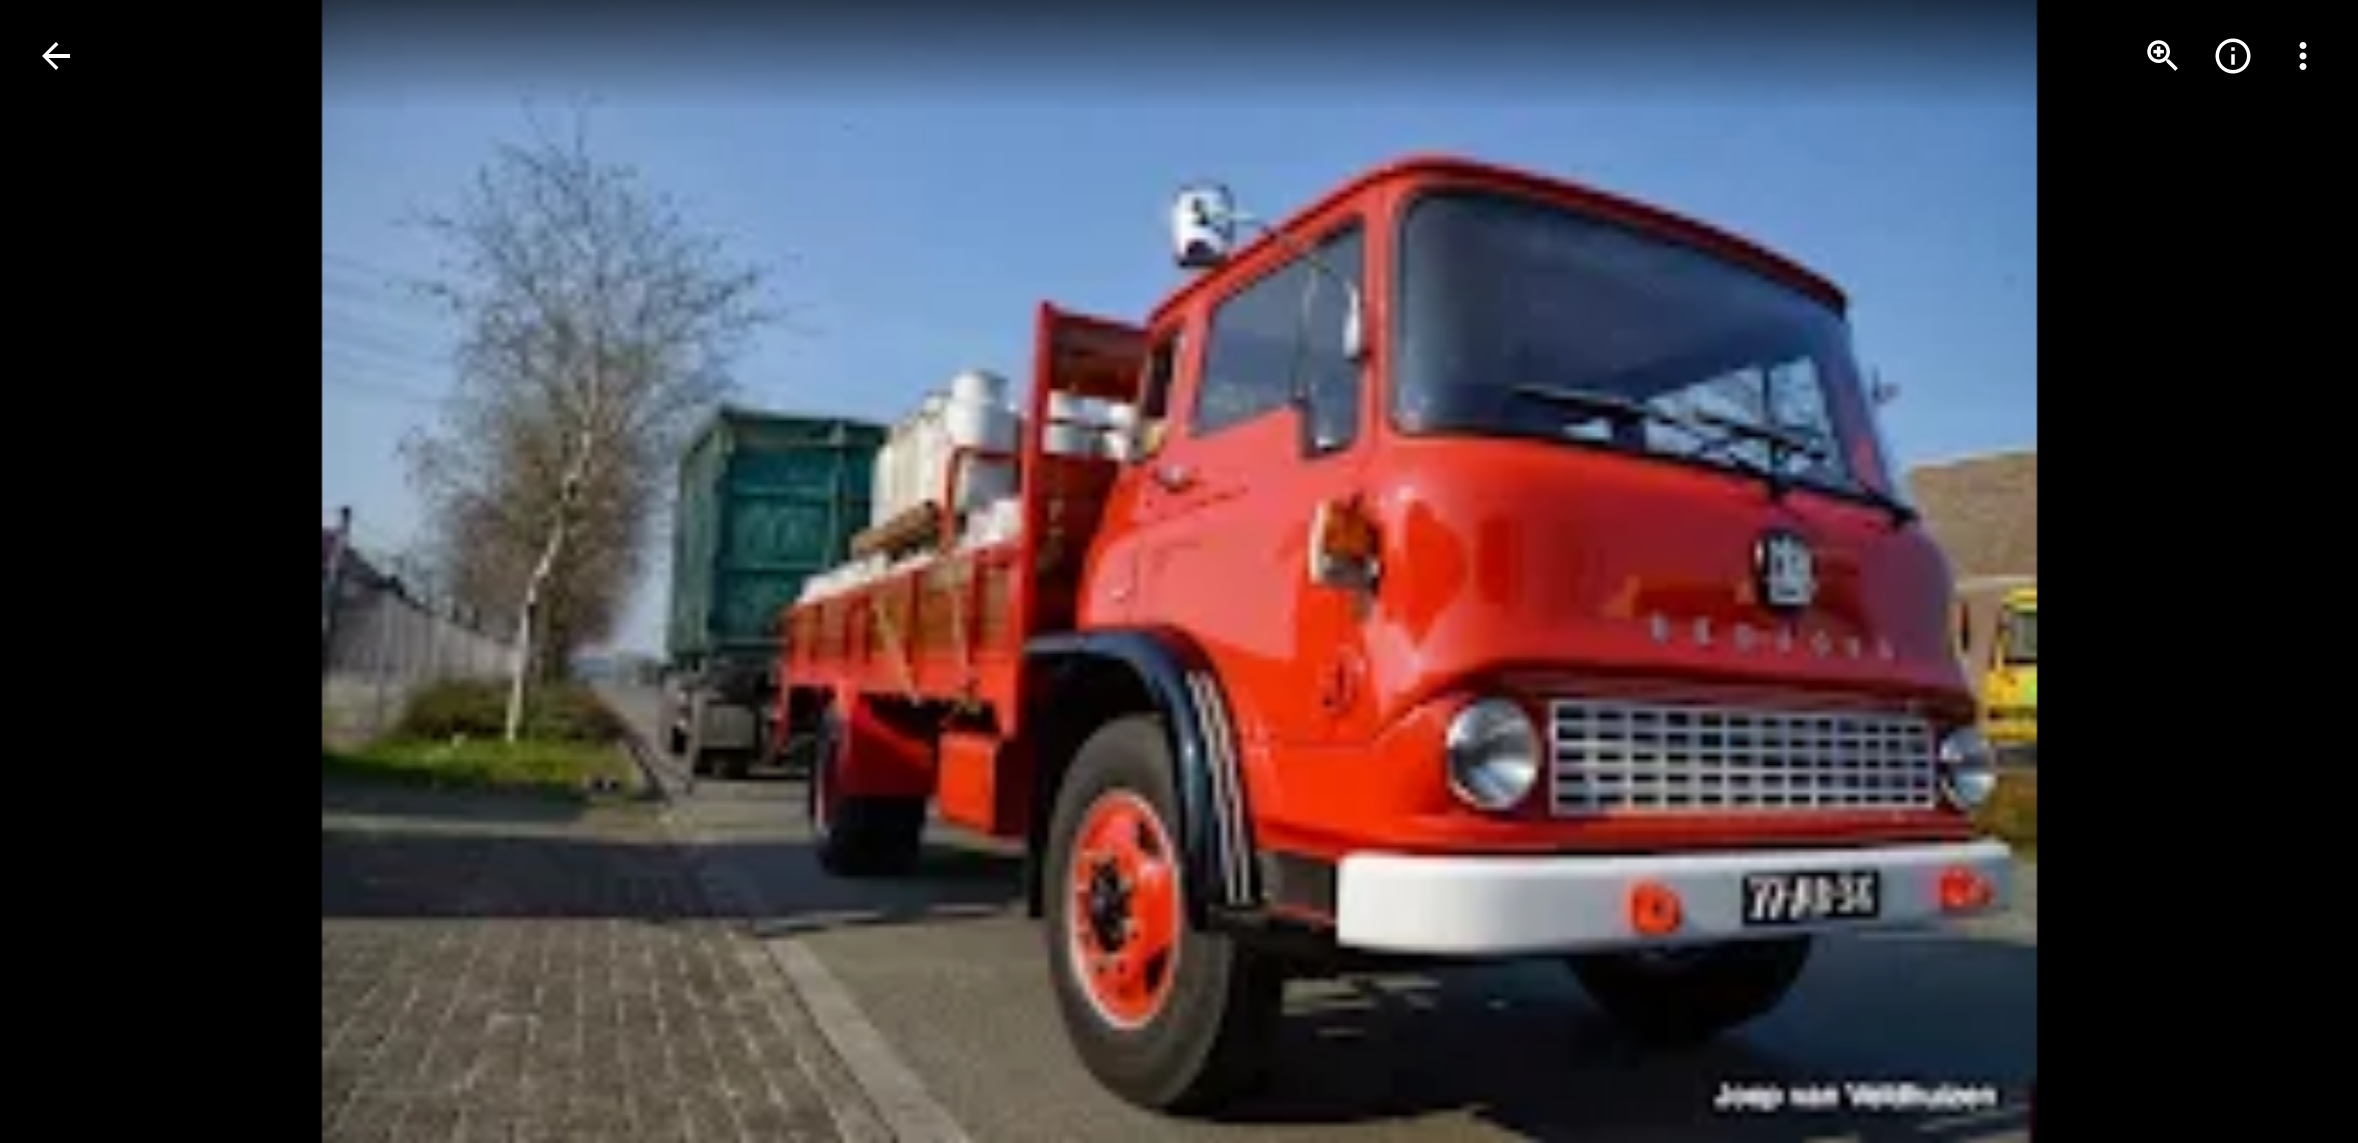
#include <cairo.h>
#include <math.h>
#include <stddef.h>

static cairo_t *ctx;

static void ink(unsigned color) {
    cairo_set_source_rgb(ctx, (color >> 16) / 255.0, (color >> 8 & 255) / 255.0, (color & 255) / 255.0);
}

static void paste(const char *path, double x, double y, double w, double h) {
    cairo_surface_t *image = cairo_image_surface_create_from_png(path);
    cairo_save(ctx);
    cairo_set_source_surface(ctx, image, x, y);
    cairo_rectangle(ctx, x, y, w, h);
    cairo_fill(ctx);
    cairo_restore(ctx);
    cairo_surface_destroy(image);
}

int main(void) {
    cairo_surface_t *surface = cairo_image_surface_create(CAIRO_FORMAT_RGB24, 2358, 1143);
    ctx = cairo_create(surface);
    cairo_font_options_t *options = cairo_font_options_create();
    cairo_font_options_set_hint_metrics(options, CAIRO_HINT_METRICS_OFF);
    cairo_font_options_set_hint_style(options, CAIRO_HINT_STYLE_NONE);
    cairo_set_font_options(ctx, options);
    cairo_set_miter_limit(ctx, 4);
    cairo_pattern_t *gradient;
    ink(0x000000);
    cairo_paint(ctx);
    paste("pic4.png", 321, 0, 1717, 1143);
    gradient = cairo_pattern_create_linear(1180, 0, 1180, 112);
    cairo_pattern_add_color_stop_rgba(gradient, 0, 0, 0, 0, 0.6);
    cairo_pattern_add_color_stop_rgba(gradient, 1, 0, 0, 0, 0);
    cairo_set_source(ctx, gradient);
    cairo_pattern_destroy(gradient);
    cairo_rectangle(ctx, 321, 0, 1717, 108);
    cairo_fill(ctx);
    ink(0xffffff);
    cairo_new_path(ctx);
    cairo_move_to(ctx, 70, 54);
    cairo_line_to(ctx, 48.5, 54);
    cairo_line_to(ctx, 58.5, 44.5);
    cairo_line_to(ctx, 56, 42);
    cairo_line_to(ctx, 42, 56);
    cairo_line_to(ctx, 56, 70);
    cairo_line_to(ctx, 58.5, 67.5);
    cairo_line_to(ctx, 48.5, 58);
    cairo_line_to(ctx, 70, 58);
    cairo_close_path(ctx);
    cairo_fill(ctx);
    paste("pic1.png", 2147, 40, 31, 31);
    paste("pic2.png", 2215, 38, 36, 36);
    paste("pic3.png", 2299, 42, 8, 28);
    cairo_surface_write_to_png(surface, "screenshot.png");
    cairo_font_options_destroy(options);
    cairo_destroy(ctx);
    cairo_surface_destroy(surface);
    return 0;
}
